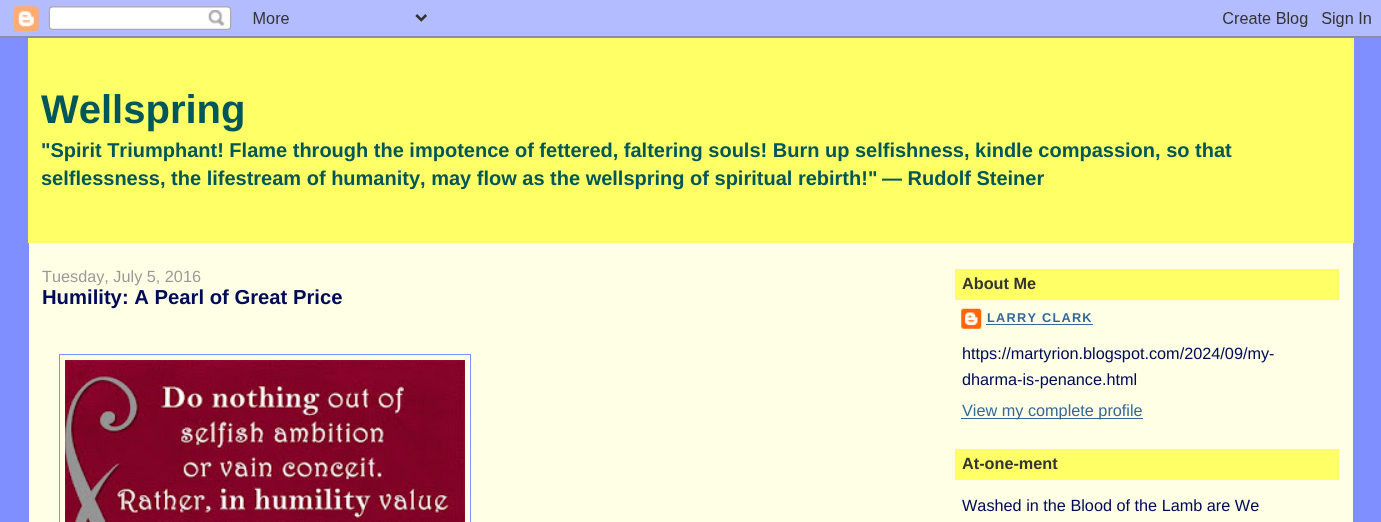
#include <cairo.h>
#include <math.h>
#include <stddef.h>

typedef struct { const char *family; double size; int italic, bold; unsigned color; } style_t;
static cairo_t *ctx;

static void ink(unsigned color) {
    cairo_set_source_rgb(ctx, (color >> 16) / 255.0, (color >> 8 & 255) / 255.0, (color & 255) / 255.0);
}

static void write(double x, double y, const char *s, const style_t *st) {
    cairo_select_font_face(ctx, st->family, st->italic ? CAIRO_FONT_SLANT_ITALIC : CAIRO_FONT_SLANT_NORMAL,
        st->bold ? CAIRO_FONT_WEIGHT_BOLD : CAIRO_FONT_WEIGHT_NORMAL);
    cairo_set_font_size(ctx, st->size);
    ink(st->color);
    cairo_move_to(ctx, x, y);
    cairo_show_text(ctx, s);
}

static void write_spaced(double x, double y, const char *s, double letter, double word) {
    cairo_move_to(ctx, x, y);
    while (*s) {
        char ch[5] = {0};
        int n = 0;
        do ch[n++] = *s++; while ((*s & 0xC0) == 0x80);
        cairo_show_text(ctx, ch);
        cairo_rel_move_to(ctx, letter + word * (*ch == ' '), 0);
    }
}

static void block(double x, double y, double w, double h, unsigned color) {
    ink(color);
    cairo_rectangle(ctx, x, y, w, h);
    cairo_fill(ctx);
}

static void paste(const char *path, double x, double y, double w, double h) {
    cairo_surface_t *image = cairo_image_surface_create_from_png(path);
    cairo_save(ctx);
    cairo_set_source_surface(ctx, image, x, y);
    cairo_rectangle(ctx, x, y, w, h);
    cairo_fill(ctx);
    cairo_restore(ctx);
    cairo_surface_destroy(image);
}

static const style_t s1 = {"Liberation Sans", 40, 0, 1, 0x005658};
static const style_t s2 = {"Liberation Sans", 20, 0, 1, 0x005658};
static const style_t s3 = {"Liberation Sans", 16.25, 0, 0, 0x999999};
static const style_t s4 = {"Liberation Sans", 20.25, 0, 1, 0x000b58};
static const style_t s5 = {"Liberation Sans", 16.25, 0, 1, 0x333333};
static const style_t s6 = {"Liberation Sans", 16.25, 0, 0, 0x000b58};
static const style_t s7 = {"Liberation Sans", 16.25, 0, 0, 0x336699};

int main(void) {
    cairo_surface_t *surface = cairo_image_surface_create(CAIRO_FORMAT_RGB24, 1381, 522);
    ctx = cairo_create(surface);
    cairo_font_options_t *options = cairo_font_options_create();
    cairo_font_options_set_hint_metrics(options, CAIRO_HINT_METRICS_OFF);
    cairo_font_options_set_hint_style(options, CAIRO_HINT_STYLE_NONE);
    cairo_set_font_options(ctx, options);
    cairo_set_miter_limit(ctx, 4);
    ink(0x808fff);
    cairo_paint(ctx);
    paste("pic1.png", 0, 0, 1381, 38);
    block(28, 38, 1326, 205, 0xffff66);
    write(41, 123, "Wellspring", &s1);
    write(41, 157, "\"Spirit Triumphant! Flame through the impotence of fettered, faltering souls! Burn up selfishness, kindle compassion, so that", &s2);
    write(41, 185, "selflessness, the lifestream of humanity, may flow as the wellspring of spiritual rebirth!\"", &s2);
    write(882, 185, "— Rudolf Steiner", &s2);
    block(29, 243, 1324, 279, 0xffffe6);
    write(42, 282, "Tuesday, July 5, 2016", &s3);
    write(42, 304, "Humility: A Pearl of Great Price", &s4);
    cairo_rectangle(ctx, 59.5, 354.5, 411, 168);
    ink(0x808fff);
    cairo_set_line_width(ctx, 1);
    cairo_stroke(ctx);
    paste("pic2.png", 65, 360, 400, 162);
    block(955, 269, 384, 31, 0xffff66);
    write(962, 289, "About Me", &s5);
    paste("pic3.png", 961, 308, 21, 21);
    cairo_set_font_size(ctx, 12.75);
    ink(0x336699);
    write_spaced(987, 322, "LARRY CLARK", 1.25, 0);
    block(986, 324, 107, 1, 0x336699);
    write(962, 359, "https://martyrion.blogspot.com/2024/09/my-", &s6);
    write(962, 385, "dharma-is-penance.html", &s6);
    block(961, 418, 182, 1, 0x336699);
    write(962, 416, "View my complete profile", &s7);
    block(955, 449, 384, 31, 0xffff66);
    write(962, 469, "At-one-ment", &s5);
    write(962, 511, "Washed in the Blood of the Lamb are We", &s6);
    cairo_surface_write_to_png(surface, "screenshot.png");
    cairo_font_options_destroy(options);
    cairo_destroy(ctx);
    cairo_surface_destroy(surface);
    return 0;
}
